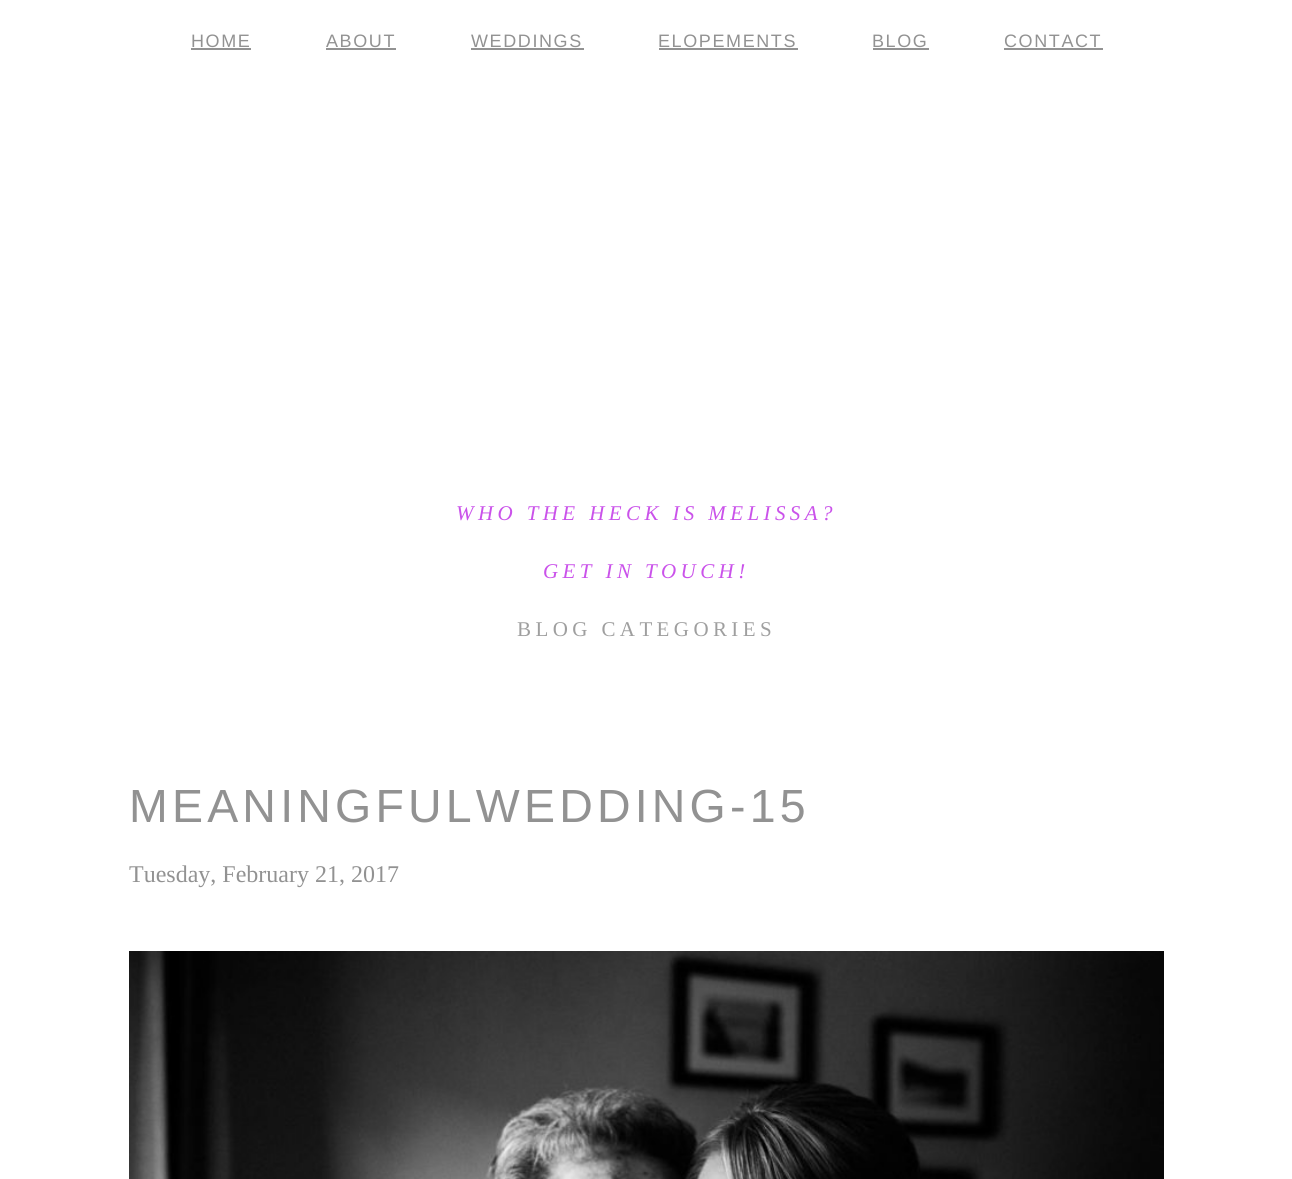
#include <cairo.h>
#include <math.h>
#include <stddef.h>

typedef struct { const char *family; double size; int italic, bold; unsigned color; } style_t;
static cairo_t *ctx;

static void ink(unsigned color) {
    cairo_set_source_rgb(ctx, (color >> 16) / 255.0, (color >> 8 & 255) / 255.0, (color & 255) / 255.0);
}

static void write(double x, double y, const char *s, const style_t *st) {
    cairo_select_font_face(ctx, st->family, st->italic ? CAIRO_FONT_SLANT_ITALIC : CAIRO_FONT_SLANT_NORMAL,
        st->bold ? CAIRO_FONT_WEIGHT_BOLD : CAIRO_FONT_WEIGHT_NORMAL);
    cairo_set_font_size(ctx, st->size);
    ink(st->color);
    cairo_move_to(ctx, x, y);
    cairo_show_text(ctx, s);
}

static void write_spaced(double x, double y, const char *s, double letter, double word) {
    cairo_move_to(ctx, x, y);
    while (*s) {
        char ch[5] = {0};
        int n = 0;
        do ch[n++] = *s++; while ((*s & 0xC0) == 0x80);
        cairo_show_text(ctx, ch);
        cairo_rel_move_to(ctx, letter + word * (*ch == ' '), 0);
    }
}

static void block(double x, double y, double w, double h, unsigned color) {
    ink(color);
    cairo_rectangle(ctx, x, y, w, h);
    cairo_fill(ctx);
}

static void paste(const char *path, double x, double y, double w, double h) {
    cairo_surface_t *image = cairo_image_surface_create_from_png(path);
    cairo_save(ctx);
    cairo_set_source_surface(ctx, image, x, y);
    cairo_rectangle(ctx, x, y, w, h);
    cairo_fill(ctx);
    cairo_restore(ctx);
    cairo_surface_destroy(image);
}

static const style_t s1 = {"Liberation Serif", 24, 0, 0, 0x929292};

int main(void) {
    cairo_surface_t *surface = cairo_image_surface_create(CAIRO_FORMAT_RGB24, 1292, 1179);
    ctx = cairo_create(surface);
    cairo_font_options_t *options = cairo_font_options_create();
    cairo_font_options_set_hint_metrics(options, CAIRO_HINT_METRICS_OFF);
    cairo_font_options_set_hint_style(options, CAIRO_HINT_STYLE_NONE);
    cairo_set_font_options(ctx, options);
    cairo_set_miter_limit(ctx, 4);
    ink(0xffffff);
    cairo_paint(ctx);
    cairo_select_font_face(ctx, "Liberation Sans", CAIRO_FONT_SLANT_NORMAL, CAIRO_FONT_WEIGHT_NORMAL);
    cairo_set_font_size(ctx, 18);
    ink(0x929292);
    write_spaced(191, 47, "HOME", 1.6, 0);
    block(191, 48, 60, 2, 0x929292);
    write_spaced(326, 47, "ABOUT", 1.6, 0);
    block(326, 48, 70, 2, 0x929292);
    write_spaced(471, 47, "WEDDINGS", 1.6, 0);
    block(471, 48, 113, 2, 0x929292);
    write_spaced(658, 47, "ELOPEMENTS", 1.6, 0);
    block(659, 48, 139, 2, 0x929292);
    write_spaced(872, 47, "BLOG", 1.6, 0);
    block(873, 48, 56, 2, 0x929292);
    write_spaced(1004, 47, "CONTACT", 1.6, 0);
    block(1004, 48, 99, 2, 0x929292);
    cairo_select_font_face(ctx, "Liberation Serif", CAIRO_FONT_SLANT_ITALIC, CAIRO_FONT_WEIGHT_NORMAL);
    cairo_set_font_size(ctx, 21);
    ink(0xca52ea);
    write_spaced(456, 520, "WHO THE HECK IS MELISSA?", 4.4, 0);
    write_spaced(543, 578, "GET IN TOUCH!", 4.4, 0);
    cairo_select_font_face(ctx, "Liberation Serif", CAIRO_FONT_SLANT_NORMAL, CAIRO_FONT_WEIGHT_NORMAL);
    ink(0x9f9f9f);
    write_spaced(517, 636, "BLOG CATEGORIES", 4.4, 0);
    cairo_select_font_face(ctx, "Liberation Sans", CAIRO_FONT_SLANT_NORMAL, CAIRO_FONT_WEIGHT_NORMAL);
    cairo_set_font_size(ctx, 46.5);
    ink(0x929292);
    write_spaced(129, 822, "MEANINGFULWEDDING-15", 4.2, 0);
    write(129, 882, "Tuesday, February 21, 2017", &s1);
    paste("pic1.png", 129, 951, 1035, 228);
    cairo_surface_write_to_png(surface, "screenshot.png");
    cairo_font_options_destroy(options);
    cairo_destroy(ctx);
    cairo_surface_destroy(surface);
    return 0;
}
